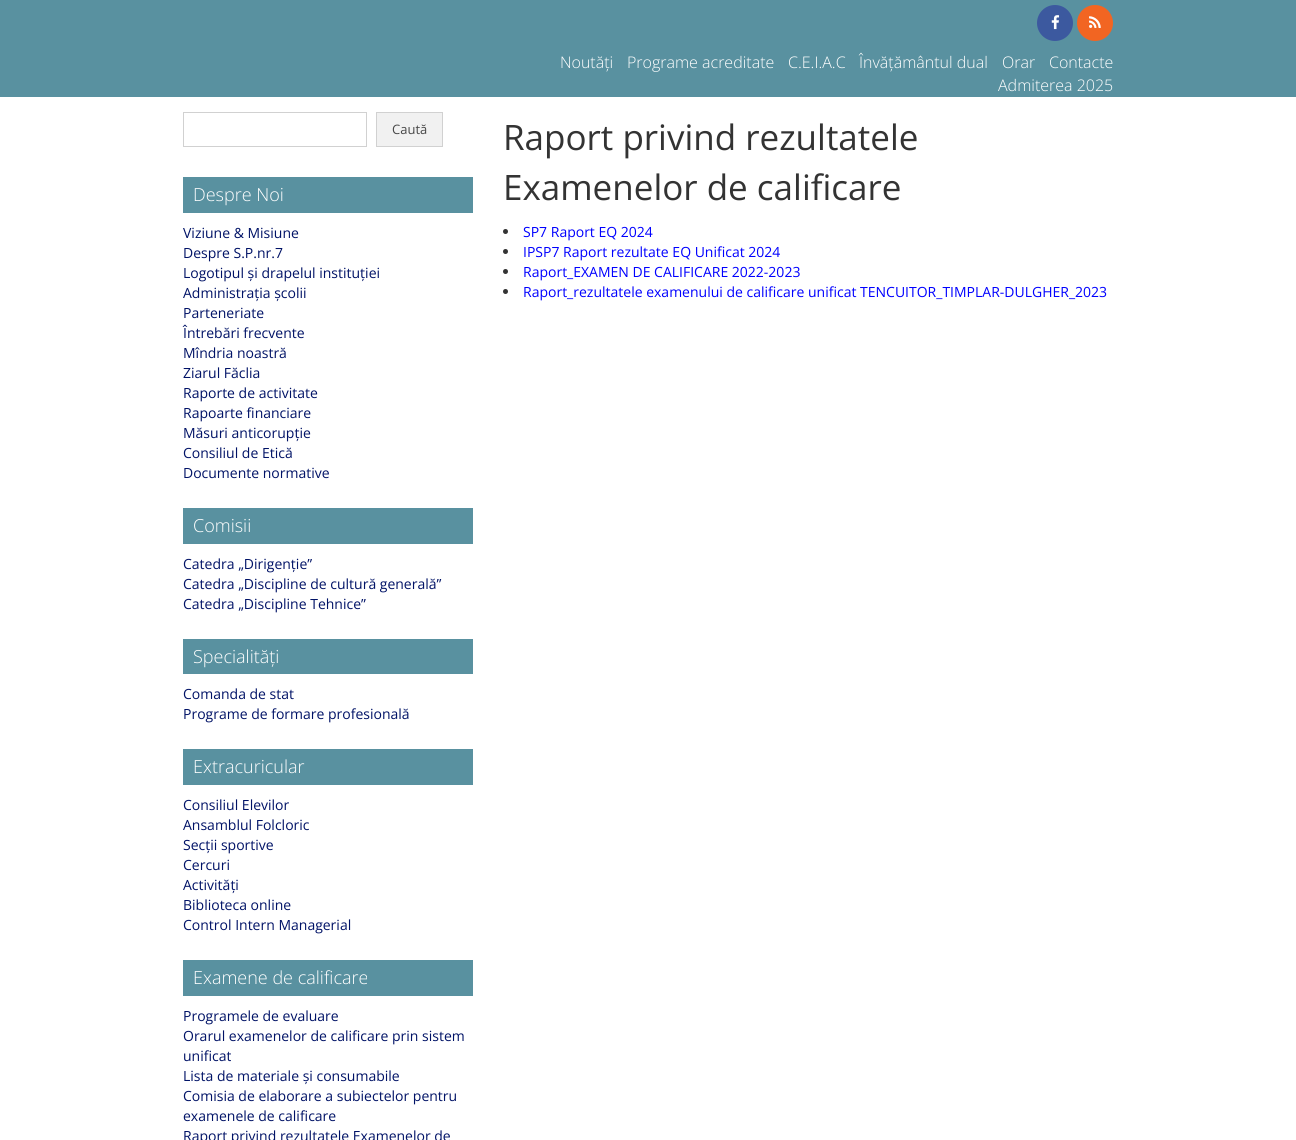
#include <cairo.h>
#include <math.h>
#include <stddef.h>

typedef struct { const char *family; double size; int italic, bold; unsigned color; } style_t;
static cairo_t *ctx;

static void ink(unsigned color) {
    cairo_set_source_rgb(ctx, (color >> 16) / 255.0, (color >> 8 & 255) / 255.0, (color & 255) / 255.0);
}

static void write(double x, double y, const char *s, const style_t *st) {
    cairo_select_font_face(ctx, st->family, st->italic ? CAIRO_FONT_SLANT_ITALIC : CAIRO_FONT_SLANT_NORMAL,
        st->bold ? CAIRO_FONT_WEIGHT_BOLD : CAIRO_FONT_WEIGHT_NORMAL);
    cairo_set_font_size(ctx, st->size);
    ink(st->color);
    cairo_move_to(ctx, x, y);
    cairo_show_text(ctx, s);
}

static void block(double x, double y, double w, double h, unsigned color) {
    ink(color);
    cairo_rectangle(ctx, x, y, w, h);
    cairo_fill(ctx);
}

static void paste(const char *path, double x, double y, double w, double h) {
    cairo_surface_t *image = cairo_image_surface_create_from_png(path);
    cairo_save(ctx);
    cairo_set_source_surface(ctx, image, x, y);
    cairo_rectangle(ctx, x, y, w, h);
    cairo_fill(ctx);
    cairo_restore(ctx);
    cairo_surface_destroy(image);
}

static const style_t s1 = {"Open Sans Light", 16, 0, 0, 0xffffff};
static const style_t s2 = {"Open Sans", 13, 0, 0, 0x474747};
static const style_t s3 = {"Open Sans Light", 18, 0, 0, 0xffffff};
static const style_t s4 = {"Open Sans", 14, 0, 0, 0x001266};
static const style_t s5 = {"Open Sans", 35, 0, 0, 0x333333};
static const style_t s6 = {"Open Sans", 14, 0, 0, 0x0000ff};

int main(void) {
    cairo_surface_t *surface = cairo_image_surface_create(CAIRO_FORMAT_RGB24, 1296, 1140);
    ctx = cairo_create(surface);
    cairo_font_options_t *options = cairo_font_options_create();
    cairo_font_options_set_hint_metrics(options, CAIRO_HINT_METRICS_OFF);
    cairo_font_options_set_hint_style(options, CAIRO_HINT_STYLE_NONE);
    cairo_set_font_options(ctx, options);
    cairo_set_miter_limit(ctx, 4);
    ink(0xffffff);
    cairo_paint(ctx);
    block(0, 0, 1296, 97, 0x5991a0);
    ink(0x3c599f);
    cairo_arc(ctx, 1055, 23, 18, 0, 2 * M_PI);
    cairo_fill(ctx);
    paste("pic1.png", 1051, 15, 9, 15);
    ink(0xf26522);
    cairo_arc(ctx, 1095, 23, 18, 0, 2 * M_PI);
    cairo_fill(ctx);
    paste("pic2.png", 1089, 16, 12, 12);
    write(560, 68, "Noutăți", &s1);
    write(627, 68, "Programe acreditate", &s1);
    write(788, 68, "C.E.I.A.C", &s1);
    write(859, 68, "Învățământul dual", &s1);
    write(1002, 68, "Orar", &s1);
    write(1049, 68, "Contacte", &s1);
    write(998, 91, "Admiterea 2025", &s1);
    cairo_rectangle(ctx, 183.5, 112.5, 183, 34);
    ink(0xd1d1d1);
    cairo_set_line_width(ctx, 1);
    cairo_stroke(ctx);
    ink(0xf1f1f1);
    cairo_rectangle(ctx, 376.5, 112.5, 66, 34);
    cairo_fill_preserve(ctx);
    ink(0xd1d1d1);
    cairo_stroke(ctx);
    write(392, 134, "Caută", &s2);
    block(183, 177, 290, 36, 0x5991a0);
    write(193, 201, "Despre Noi", &s3);
    write(183, 238, "Viziune & Misiune", &s4);
    write(183, 258, "Despre S.P.nr.7", &s4);
    write(183, 278, "Logotipul și drapelul instituției", &s4);
    write(183, 298, "Administrația școlii", &s4);
    write(183, 318, "Parteneriate", &s4);
    write(183, 338, "Întrebări frecvente", &s4);
    write(183, 358, "Mîndria noastră", &s4);
    write(183, 378, "Ziarul Făclia", &s4);
    write(183, 398, "Raporte de activitate", &s4);
    write(183, 418, "Rapoarte financiare", &s4);
    write(183, 438, "Măsuri anticorupție", &s4);
    write(183, 458, "Consiliul de Etică", &s4);
    write(183, 478, "Documente normative", &s4);
    block(183, 508, 290, 36, 0x5991a0);
    write(193, 532, "Comisii", &s3);
    write(183, 569, "Catedra „Dirigenție”", &s4);
    write(183, 589, "Catedra „Discipline de cultură generală”", &s4);
    write(183, 609, "Catedra „Discipline Tehnice”", &s4);
    block(183, 639, 290, 35, 0x5991a0);
    write(193, 663, "Specialități", &s3);
    write(183, 699, "Comanda de stat", &s4);
    write(183, 719, "Programe de formare profesională", &s4);
    block(183, 749, 290, 36, 0x5991a0);
    write(193, 773, "Extracuricular", &s3);
    write(183, 810, "Consiliul Elevilor", &s4);
    write(183, 830, "Ansamblul Folcloric", &s4);
    write(183, 850, "Secții sportive", &s4);
    write(183, 870, "Cercuri", &s4);
    write(183, 890, "Activități", &s4);
    write(183, 910, "Biblioteca online", &s4);
    write(183, 930, "Control Intern Managerial", &s4);
    block(183, 960, 290, 36, 0x5991a0);
    write(193, 984, "Examene de calificare", &s3);
    write(183, 1021, "Programele de evaluare", &s4);
    write(183, 1041, "Orarul examenelor de calificare prin sistem", &s4);
    write(183, 1061, "unificat", &s4);
    write(183, 1081, "Lista de materiale și consumabile", &s4);
    write(183, 1101, "Comisia de elaborare a subiectelor pentru", &s4);
    write(183, 1121, "examenele de calificare", &s4);
    write(183, 1141, "Raport privind rezultatele Examenelor de", &s4);
    write(503, 150, "Raport privind rezultatele", &s5);
    write(503, 200, "Examenelor de calificare", &s5);
    cairo_new_path(ctx);
    cairo_arc(ctx, 505.5, 231.5, 2.5, 0, 2 * M_PI);
    cairo_fill(ctx);
    write(523, 237, "SP7 Raport EQ 2024", &s6);
    ink(0x333333);
    cairo_new_path(ctx);
    cairo_arc(ctx, 505.5, 251.5, 2.5, 0, 2 * M_PI);
    cairo_fill(ctx);
    write(523, 257, "IPSP7 Raport rezultate EQ Unificat 2024", &s6);
    ink(0x333333);
    cairo_new_path(ctx);
    cairo_arc(ctx, 505.5, 271.5, 2.5, 0, 2 * M_PI);
    cairo_fill(ctx);
    write(523, 277, "Raport_EXAMEN DE CALIFICARE 2022-2023", &s6);
    ink(0x333333);
    cairo_new_path(ctx);
    cairo_arc(ctx, 505.5, 291.5, 2.5, 0, 2 * M_PI);
    cairo_fill(ctx);
    write(523, 297, "Raport_rezultatele examenului de calificare unificat TENCUITOR_TIMPLAR-DULGHER_2023", &s6);
    cairo_surface_write_to_png(surface, "screenshot.png");
    cairo_font_options_destroy(options);
    cairo_destroy(ctx);
    cairo_surface_destroy(surface);
    return 0;
}
